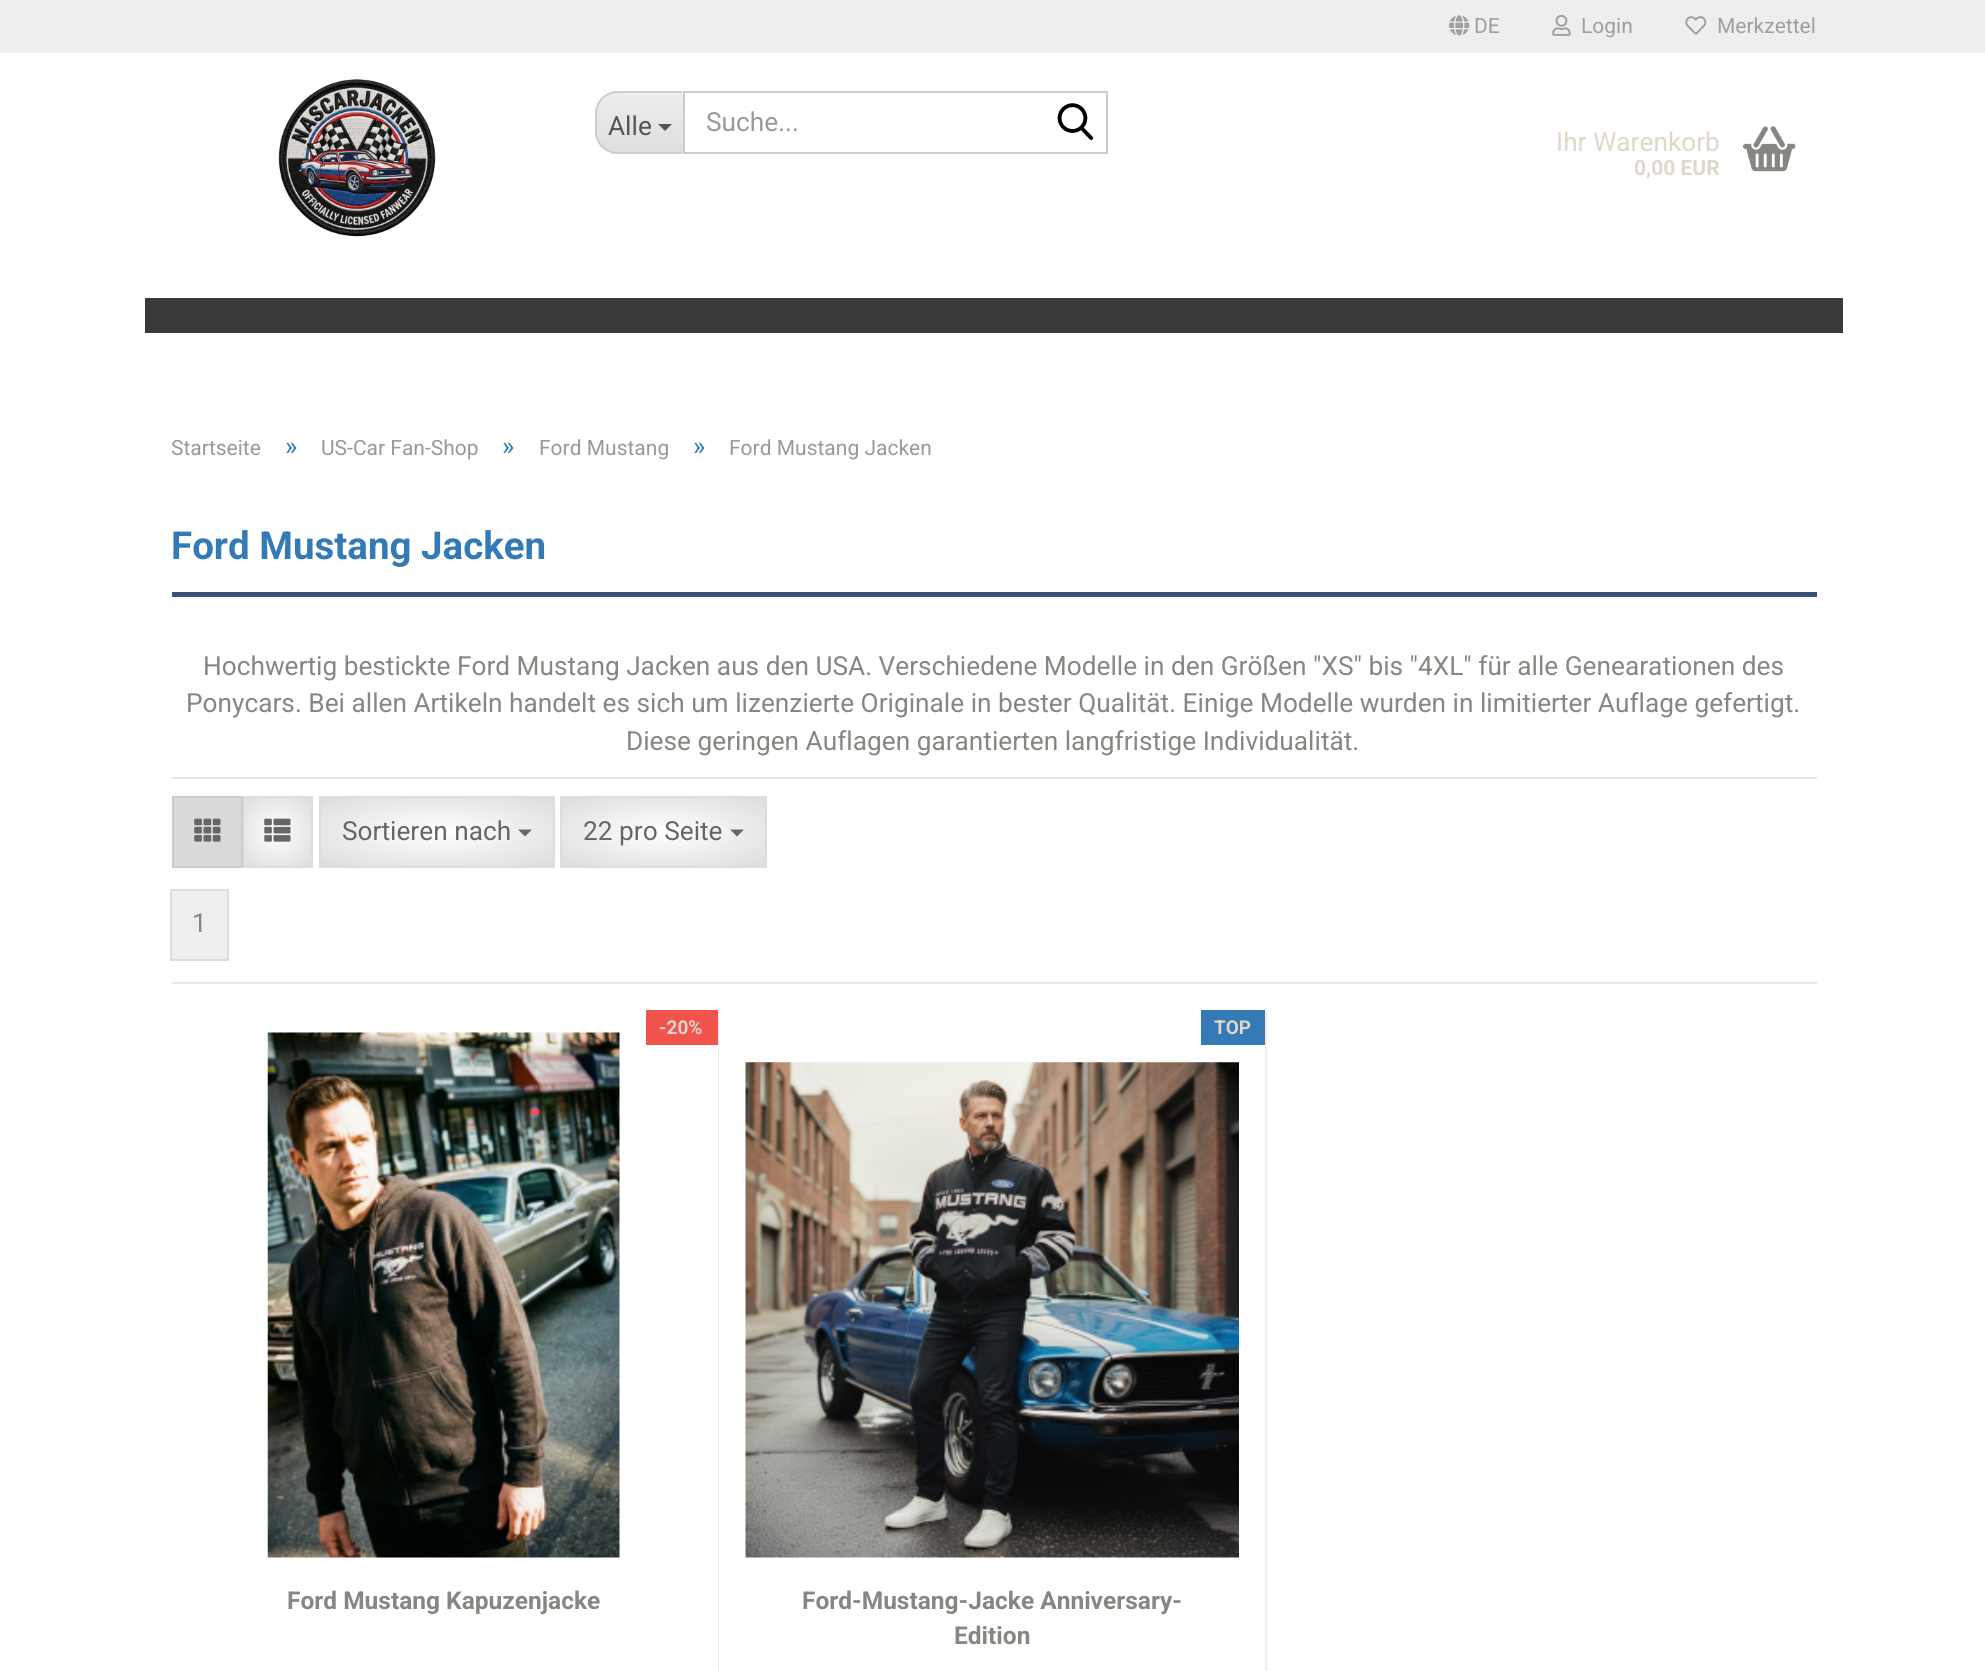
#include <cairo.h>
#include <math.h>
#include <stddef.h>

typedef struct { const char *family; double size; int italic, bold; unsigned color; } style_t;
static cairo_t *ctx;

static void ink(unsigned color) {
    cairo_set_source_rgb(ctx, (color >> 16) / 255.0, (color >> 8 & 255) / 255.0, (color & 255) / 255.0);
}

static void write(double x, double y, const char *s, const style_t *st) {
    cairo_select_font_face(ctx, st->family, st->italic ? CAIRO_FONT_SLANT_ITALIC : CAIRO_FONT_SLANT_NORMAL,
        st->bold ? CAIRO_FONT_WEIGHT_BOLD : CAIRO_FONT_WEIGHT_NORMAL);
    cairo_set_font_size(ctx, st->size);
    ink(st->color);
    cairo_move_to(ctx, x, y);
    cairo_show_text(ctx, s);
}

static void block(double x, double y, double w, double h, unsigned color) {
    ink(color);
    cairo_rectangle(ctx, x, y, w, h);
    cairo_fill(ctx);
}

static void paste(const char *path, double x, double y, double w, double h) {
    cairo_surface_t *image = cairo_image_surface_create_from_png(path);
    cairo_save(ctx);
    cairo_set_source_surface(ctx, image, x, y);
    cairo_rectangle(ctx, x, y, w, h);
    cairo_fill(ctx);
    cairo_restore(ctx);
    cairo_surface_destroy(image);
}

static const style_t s1 = {"Roboto", 21, 0, 0, 0x9f9f9f};
static const style_t s2 = {"Roboto", 26.25, 0, 0, 0x555555};
static const style_t s3 = {"Roboto", 26.25, 0, 0, 0x999999};
static const style_t s4 = {"Roboto", 26.25, 0, 0, 0xded7ca};
static const style_t s5 = {"Roboto", 21, 0, 1, 0xded7ca};
static const style_t s6 = {"Roboto", 21, 0, 0, 0x999999};
static const style_t s7 = {"Roboto", 26.25, 0, 0, 0x337ab7};
static const style_t s8 = {"Roboto", 38.5, 0, 1, 0x337ab7};
static const style_t s9 = {"Roboto", 26.25, 0, 0, 0x878681};
static const style_t s10 = {"Roboto", 26.25, 0, 0, 0x666666};
static const style_t s11 = {"Roboto", 19, 0, 1, 0xded7ca};
static const style_t s12 = {"Roboto", 24.5, 0, 1, 0x878681};

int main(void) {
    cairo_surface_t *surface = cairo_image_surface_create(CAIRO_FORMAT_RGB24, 1985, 1671);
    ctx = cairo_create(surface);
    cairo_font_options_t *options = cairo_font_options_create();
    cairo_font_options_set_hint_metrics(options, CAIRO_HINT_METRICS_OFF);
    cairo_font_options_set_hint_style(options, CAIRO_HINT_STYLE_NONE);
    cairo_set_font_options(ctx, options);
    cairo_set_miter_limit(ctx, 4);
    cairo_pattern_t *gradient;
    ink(0xffffff);
    cairo_paint(ctx);
    block(0, 0, 1985, 53, 0xeeeeee);
    paste("pic1.png", 1449, 15, 21, 21);
    write(1474, 33, "DE", &s1);
    paste("pic2.png", 1552, 14, 19, 22);
    write(1581, 33, "Login", &s1);
    paste("pic3.png", 1685, 16, 22, 19);
    write(1717, 33, "Merkzettel", &s1);
    paste("pic4.png", 278, 79, 158, 158);
    ink(0xf3f3f3);
    cairo_new_path(ctx);
    cairo_move_to(ctx, 618, 91);
    cairo_line_to(ctx, 683, 91);
    cairo_line_to(ctx, 683, 154);
    cairo_line_to(ctx, 618, 154);
    cairo_curve_to(ctx, 605.5, 154, 595, 143.5, 595, 131);
    cairo_line_to(ctx, 595, 114);
    cairo_curve_to(ctx, 595, 101.5, 605.5, 91, 618, 91);
    cairo_close_path(ctx);
    cairo_fill(ctx);
    cairo_save(ctx);
    cairo_new_path(ctx);
    cairo_move_to(ctx, 618, 91);
    cairo_line_to(ctx, 683, 91);
    cairo_line_to(ctx, 683, 154);
    cairo_line_to(ctx, 618, 154);
    cairo_curve_to(ctx, 605.5, 154, 595, 143.5, 595, 131);
    cairo_line_to(ctx, 595, 114);
    cairo_curve_to(ctx, 595, 101.5, 605.5, 91, 618, 91);
    cairo_close_path(ctx);
    cairo_clip(ctx);
    gradient = cairo_pattern_create_linear(640, 93, 640, 152);
    cairo_pattern_add_color_stop_rgba(gradient, 0, 0.933, 0.933, 0.933, 1);
    cairo_pattern_add_color_stop_rgba(gradient, 1, 0.871, 0.871, 0.871, 1);
    cairo_set_source(ctx, gradient);
    cairo_pattern_destroy(gradient);
    cairo_rectangle(ctx, 595, 93, 88, 59);
    cairo_fill(ctx);
    cairo_restore(ctx);
    ink(0xcccccc);
    cairo_set_fill_rule(ctx, CAIRO_FILL_RULE_EVEN_ODD);
    cairo_new_path(ctx);
    cairo_move_to(ctx, 618, 91);
    cairo_line_to(ctx, 682, 91);
    cairo_line_to(ctx, 682, 154);
    cairo_line_to(ctx, 618, 154);
    cairo_curve_to(ctx, 605, 154, 595, 144, 595, 131);
    cairo_line_to(ctx, 595, 114);
    cairo_curve_to(ctx, 595, 101, 605, 91, 618, 91);
    cairo_close_path(ctx);
    cairo_move_to(ctx, 618, 93);
    cairo_line_to(ctx, 682, 93);
    cairo_line_to(ctx, 682, 152);
    cairo_line_to(ctx, 618, 152);
    cairo_curve_to(ctx, 606, 152, 597, 143, 597, 131);
    cairo_line_to(ctx, 597, 114);
    cairo_curve_to(ctx, 597, 102, 606, 93, 618, 93);
    cairo_close_path(ctx);
    cairo_fill(ctx);
    write(608, 135, "Alle", &s2);
    cairo_set_fill_rule(ctx, CAIRO_FILL_RULE_WINDING);
    cairo_new_path(ctx);
    cairo_move_to(ctx, 658, 124);
    cairo_line_to(ctx, 672, 124);
    cairo_line_to(ctx, 665, 131);
    cairo_close_path(ctx);
    cairo_fill(ctx);
    cairo_rectangle(ctx, 684, 92, 423, 61);
    ink(0xcccccc);
    cairo_stroke(ctx);
    write(706, 131, "Suche...", &s3);
    paste("pic5.png", 1057, 103, 37, 37);
    write(1556, 151, "Ihr Warenkorb", &s4);
    write(1634, 175, "0,00 EUR", &s5);
    paste("pic6.png", 1743, 126, 53, 46);
    block(145, 298, 1698, 35, 0x393939);
    write(171, 455, "Startseite", &s6);
    write(285, 455, "»", &s7);
    write(321, 455, "US-Car Fan-Shop", &s6);
    write(502, 455, "»", &s7);
    write(539, 455, "Ford Mustang", &s6);
    write(693, 455, "»", &s7);
    write(729, 455, "Ford Mustang Jacken", &s6);
    block(172, 592, 1645, 5, 0x375179);
    write(171, 559, "Ford Mustang Jacken", &s8);
    write(203, 675, "Hochwertig bestickte Ford Mustang Jacken aus den USA. Verschiedene Modelle in den Größen \"XS\" bis \"4XL\" für alle Genearationen des", &s9);
    write(186, 712, "Ponycars. Bei allen Artikeln handelt es sich um lizenzierte Originale in bester Qualität. Einige Modelle wurden in limitierter Auflage gefertigt.", &s9);
    write(626, 750, "Diese geringen Auflagen garantierten langfristige Individualität.", &s9);
    block(172, 777, 1645, 2, 0xe7e7e7);
    block(172, 982, 1645, 2, 0xe7e7e7);
    gradient = cairo_pattern_create_radial(277, 832, 0, 277, 832, 48);
    cairo_pattern_add_color_stop_rgba(gradient, 0, 1, 1, 1, 1);
    cairo_pattern_add_color_stop_rgba(gradient, 1, 0.867, 0.867, 0.867, 1);
    cairo_set_source(ctx, gradient);
    cairo_pattern_destroy(gradient);
    cairo_rectangle(ctx, 244, 798, 67, 68);
    cairo_fill(ctx);
    cairo_rectangle(ctx, 243, 797, 69, 70);
    ink(0xdddddd);
    cairo_stroke(ctx);
    ink(0xdadada);
    cairo_rectangle(ctx, 173, 797, 69, 70);
    cairo_fill_preserve(ctx);
    ink(0xcccccc);
    cairo_stroke(ctx);
    paste("pic7.png", 194, 818, 27, 24);
    paste("pic8.png", 264, 818, 27, 24);
    gradient = cairo_pattern_create_radial(0, 0, 0, 0, 0, 1);
    cairo_pattern_set_matrix(gradient, &(cairo_matrix_t){1.0 / 165, 0, 0, 1.0 / 48, -1.0 * 437 / 165, -1.0 * 832 / 48});
    cairo_pattern_add_color_stop_rgba(gradient, 0, 1, 1, 1, 1);
    cairo_pattern_add_color_stop_rgba(gradient, 1, 0.867, 0.867, 0.867, 1);
    cairo_set_source(ctx, gradient);
    cairo_pattern_destroy(gradient);
    cairo_rectangle(ctx, 321, 798, 232, 68);
    cairo_fill(ctx);
    cairo_rectangle(ctx, 320, 797, 234, 70);
    ink(0xdddddd);
    cairo_stroke(ctx);
    write(342, 840, "Sortieren nach", &s10);
    cairo_new_path(ctx);
    cairo_move_to(ctx, 518, 829.5);
    cairo_line_to(ctx, 532, 829.5);
    cairo_line_to(ctx, 525, 836.5);
    cairo_close_path(ctx);
    cairo_fill(ctx);
    gradient = cairo_pattern_create_radial(0, 0, 0, 0, 0, 1);
    cairo_pattern_set_matrix(gradient, &(cairo_matrix_t){1.0 / 144, 0, 0, 1.0 / 48, -1.0 * 663 / 144, -1.0 * 832 / 48});
    cairo_pattern_add_color_stop_rgba(gradient, 0, 1, 1, 1, 1);
    cairo_pattern_add_color_stop_rgba(gradient, 1, 0.867, 0.867, 0.867, 1);
    cairo_set_source(ctx, gradient);
    cairo_pattern_destroy(gradient);
    cairo_rectangle(ctx, 562, 798, 203, 68);
    cairo_fill(ctx);
    cairo_rectangle(ctx, 561, 797, 205, 70);
    ink(0xdddddd);
    cairo_stroke(ctx);
    write(583, 840, "22 pro Seite", &s10);
    cairo_new_path(ctx);
    cairo_move_to(ctx, 730, 829.5);
    cairo_line_to(ctx, 744, 829.5);
    cairo_line_to(ctx, 737, 836.5);
    cairo_close_path(ctx);
    cairo_fill(ctx);
    ink(0xeeeeee);
    cairo_rectangle(ctx, 171, 890, 57, 70);
    cairo_fill_preserve(ctx);
    ink(0xdddddd);
    cairo_stroke(ctx);
    write(192, 932, "1", &s9);
    block(718, 1010, 1, 661, 0xeeeeee);
    block(646, 1010, 72, 35, 0xf1544d);
    write(659, 1034, "-20%", &s11);
    paste("pic9.png", 267, 1032, 353, 526);
    write(287, 1609, "Ford Mustang Kapuzenjacke", &s12);
    block(1265, 1010, 2, 661, 0xeeeeee);
    block(1201, 1010, 64, 35, 0x337ab7);
    write(1214, 1034, "TOP", &s11);
    paste("pic10.png", 745, 1062, 494, 496);
    write(802, 1609, "Ford-Mustang-Jacke Anniversary-", &s12);
    write(954, 1644, "Edition", &s12);
    cairo_surface_write_to_png(surface, "screenshot.png");
    cairo_font_options_destroy(options);
    cairo_destroy(ctx);
    cairo_surface_destroy(surface);
    return 0;
}
